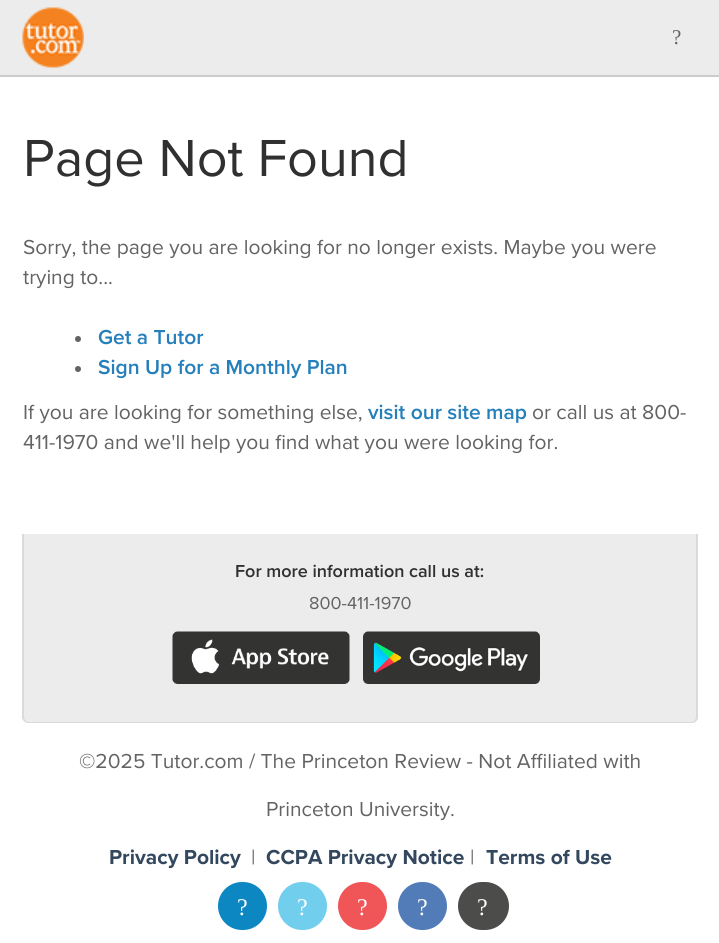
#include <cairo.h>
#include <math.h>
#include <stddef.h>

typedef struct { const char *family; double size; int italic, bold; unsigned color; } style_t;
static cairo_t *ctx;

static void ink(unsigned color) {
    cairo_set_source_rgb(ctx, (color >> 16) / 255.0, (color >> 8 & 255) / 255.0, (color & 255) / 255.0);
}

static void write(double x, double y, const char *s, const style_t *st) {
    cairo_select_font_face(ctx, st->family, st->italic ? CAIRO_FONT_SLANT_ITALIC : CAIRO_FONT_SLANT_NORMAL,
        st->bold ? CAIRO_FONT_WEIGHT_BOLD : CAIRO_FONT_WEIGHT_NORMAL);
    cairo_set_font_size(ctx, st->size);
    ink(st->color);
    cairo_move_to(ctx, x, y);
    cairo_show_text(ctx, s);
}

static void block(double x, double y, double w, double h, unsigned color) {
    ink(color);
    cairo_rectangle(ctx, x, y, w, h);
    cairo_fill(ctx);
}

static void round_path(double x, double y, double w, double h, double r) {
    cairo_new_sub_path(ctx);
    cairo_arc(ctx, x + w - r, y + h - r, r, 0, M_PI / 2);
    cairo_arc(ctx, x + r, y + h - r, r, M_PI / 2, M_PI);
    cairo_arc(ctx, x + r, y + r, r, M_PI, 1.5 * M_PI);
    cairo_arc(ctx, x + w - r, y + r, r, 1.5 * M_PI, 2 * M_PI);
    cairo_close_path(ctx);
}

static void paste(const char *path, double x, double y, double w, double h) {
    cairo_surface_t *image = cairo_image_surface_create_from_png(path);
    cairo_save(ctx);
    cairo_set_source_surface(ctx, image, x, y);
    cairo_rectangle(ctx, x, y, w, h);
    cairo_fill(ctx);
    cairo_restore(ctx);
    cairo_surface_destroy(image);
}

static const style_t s1 = {"Liberation Serif", 21, 0, 0, 0x636363};
static const style_t s2 = {"Proxima Nova", 54, 0, 0, 0x303030};
static const style_t s3 = {"Proxima Nova", 21, 0, 0, 0x636363};
static const style_t s4 = {"Proxima Nova SemiBold", 21, 0, 0, 0x247fbb};
static const style_t s5 = {"Proxima Nova SemiBold", 18, 0, 0, 0x303030};
static const style_t s6 = {"Proxima Nova", 18, 0, 0, 0x636363};
static const style_t s7 = {"Proxima Nova", 21, 0, 1, 0x33485e};
static const style_t s8 = {"Liberation Serif", 24, 0, 0, 0xffffff};

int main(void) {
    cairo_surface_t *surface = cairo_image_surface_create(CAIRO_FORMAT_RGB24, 719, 943);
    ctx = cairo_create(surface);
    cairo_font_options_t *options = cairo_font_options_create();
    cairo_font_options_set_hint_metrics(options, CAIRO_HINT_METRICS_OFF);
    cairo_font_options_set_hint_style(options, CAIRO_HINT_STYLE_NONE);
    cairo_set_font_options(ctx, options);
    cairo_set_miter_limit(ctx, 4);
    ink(0xffffff);
    cairo_paint(ctx);
    block(0, 0, 719, 75, 0xececec);
    block(0, 75, 719, 2, 0xcccccc);
    paste("pic1.png", 22, 7, 62, 61);
    write(672, 44, "?", &s1);
    write(23, 176, "Page Not Found", &s2);
    write(23, 254, "Sorry, the page you are looking for no longer exists. Maybe you were", &s3);
    write(23, 284, "trying to...", &s3);
    cairo_new_path(ctx);
    cairo_arc(ctx, 78, 339, 3, 0, 2 * M_PI);
    cairo_fill(ctx);
    write(98, 344, "Get a Tutor", &s4);
    ink(0x636363);
    cairo_new_path(ctx);
    cairo_arc(ctx, 78, 369, 3, 0, 2 * M_PI);
    cairo_fill(ctx);
    write(98, 374, "Sign Up for a Monthly Plan", &s4);
    write(23, 419, "If you are looking for something else,", &s3);
    write(368, 419, "visit our site map", &s4);
    write(532, 419, "or call us at 800-", &s3);
    write(23, 449, "411-1970 and we'll help you find what you were looking for.", &s3);
    ink(0xececec);
    cairo_new_path(ctx);
    cairo_move_to(ctx, 23, 534);
    cairo_line_to(ctx, 698, 534);
    cairo_line_to(ctx, 698, 717);
    cairo_curve_to(ctx, 698, 720.5, 695.5, 723, 692, 723);
    cairo_line_to(ctx, 29, 723);
    cairo_curve_to(ctx, 25.5, 723, 23, 720.5, 23, 717);
    cairo_close_path(ctx);
    cairo_fill(ctx);
    ink(0xdadada);
    cairo_set_fill_rule(ctx, CAIRO_FILL_RULE_EVEN_ODD);
    cairo_new_path(ctx);
    cairo_move_to(ctx, 22, 534);
    cairo_line_to(ctx, 698, 534);
    cairo_line_to(ctx, 698, 717);
    cairo_curve_to(ctx, 698, 720, 695, 723, 692, 723);
    cairo_line_to(ctx, 28, 723);
    cairo_curve_to(ctx, 25, 723, 22, 720, 22, 717);
    cairo_close_path(ctx);
    cairo_move_to(ctx, 24, 534);
    cairo_line_to(ctx, 696, 534);
    cairo_line_to(ctx, 696, 717);
    cairo_curve_to(ctx, 696, 719, 694, 722, 692, 722);
    cairo_line_to(ctx, 28, 722);
    cairo_curve_to(ctx, 26, 722, 24, 719, 24, 717);
    cairo_close_path(ctx);
    cairo_fill(ctx);
    write(235, 577, "For more information call us at:", &s5);
    write(309, 609, "800-411-1970", &s6);
    paste("pic2.png", 172, 631, 178, 53);
    paste("pic3.png", 363, 631, 177, 53);
    write(79, 768, "©2025 Tutor.com / The Princeton Review - Not Affiliated with", &s3);
    write(266, 816, "Princeton University.", &s3);
    write(109, 864, "Privacy Policy", &s7);
    write(251, 864, "|", &s3);
    write(266, 864, "CCPA Privacy Notice", &s7);
    write(470, 864, "|", &s3);
    write(486, 864, "Terms of Use", &s7);
    ink(0x0d87c2);
    round_path(218, 882, 49, 48, 24);
    cairo_fill(ctx);
    write(237, 915, "?", &s8);
    ink(0x72ceed);
    round_path(278, 882, 49, 48, 24);
    cairo_fill(ctx);
    write(297, 915, "?", &s8);
    ink(0xf05558);
    round_path(338, 882, 49, 48, 24);
    cairo_fill(ctx);
    write(357, 915, "?", &s8);
    ink(0x517cb8);
    round_path(398, 882, 49, 48, 24);
    cairo_fill(ctx);
    write(417, 915, "?", &s8);
    ink(0x4c4c4b);
    round_path(458, 882, 51, 48, 24);
    cairo_fill(ctx);
    write(477, 915, "?", &s8);
    cairo_surface_write_to_png(surface, "screenshot.png");
    cairo_font_options_destroy(options);
    cairo_destroy(ctx);
    cairo_surface_destroy(surface);
    return 0;
}
